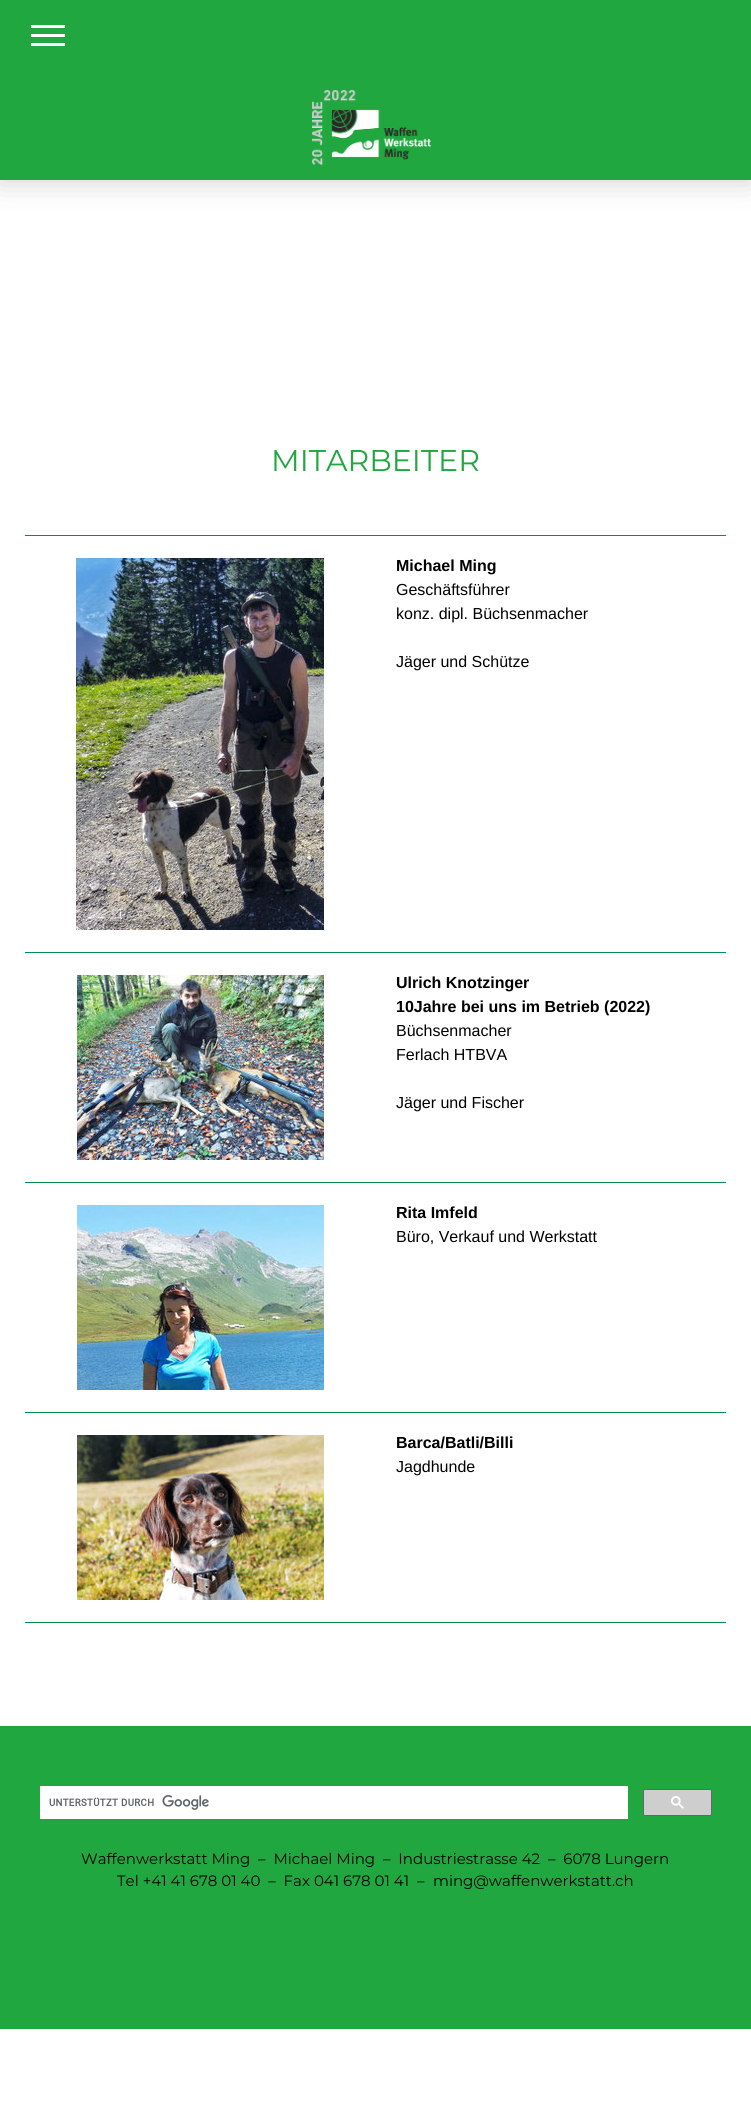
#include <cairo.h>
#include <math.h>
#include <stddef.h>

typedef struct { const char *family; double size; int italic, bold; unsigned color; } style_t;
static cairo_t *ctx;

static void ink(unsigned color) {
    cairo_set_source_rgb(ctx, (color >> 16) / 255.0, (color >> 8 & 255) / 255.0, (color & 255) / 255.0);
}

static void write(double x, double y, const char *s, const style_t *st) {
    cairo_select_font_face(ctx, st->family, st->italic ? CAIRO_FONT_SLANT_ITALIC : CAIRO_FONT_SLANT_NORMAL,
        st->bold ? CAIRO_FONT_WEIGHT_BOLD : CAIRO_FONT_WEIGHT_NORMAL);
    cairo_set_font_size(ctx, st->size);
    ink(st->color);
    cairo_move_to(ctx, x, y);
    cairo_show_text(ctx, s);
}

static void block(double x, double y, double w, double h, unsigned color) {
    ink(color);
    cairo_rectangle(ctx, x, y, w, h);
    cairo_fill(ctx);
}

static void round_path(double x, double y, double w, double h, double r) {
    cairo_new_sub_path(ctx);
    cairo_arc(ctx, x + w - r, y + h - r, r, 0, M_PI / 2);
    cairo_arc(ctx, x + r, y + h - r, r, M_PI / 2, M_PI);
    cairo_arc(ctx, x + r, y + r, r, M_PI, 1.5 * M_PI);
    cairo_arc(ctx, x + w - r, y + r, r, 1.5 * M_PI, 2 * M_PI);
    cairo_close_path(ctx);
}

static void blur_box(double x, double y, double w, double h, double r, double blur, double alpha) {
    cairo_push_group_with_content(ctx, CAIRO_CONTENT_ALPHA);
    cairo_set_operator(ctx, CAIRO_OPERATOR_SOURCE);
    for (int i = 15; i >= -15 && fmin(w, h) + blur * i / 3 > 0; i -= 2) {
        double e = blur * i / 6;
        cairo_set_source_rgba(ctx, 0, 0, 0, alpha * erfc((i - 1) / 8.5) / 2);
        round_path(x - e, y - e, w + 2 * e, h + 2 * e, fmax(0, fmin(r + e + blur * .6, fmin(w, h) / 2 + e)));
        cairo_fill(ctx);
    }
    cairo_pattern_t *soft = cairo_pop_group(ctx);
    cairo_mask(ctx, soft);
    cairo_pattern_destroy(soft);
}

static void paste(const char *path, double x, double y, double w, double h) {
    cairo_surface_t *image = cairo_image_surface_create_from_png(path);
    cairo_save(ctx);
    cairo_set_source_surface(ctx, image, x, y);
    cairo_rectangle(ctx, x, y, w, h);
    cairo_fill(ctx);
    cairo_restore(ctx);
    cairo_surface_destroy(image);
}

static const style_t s1 = {"Montserrat Thin", 30, 0, 0, 0x21a73f};
static const style_t s2 = {"Liberation Sans", 16, 0, 1, 0x000000};
static const style_t s3 = {"Liberation Sans", 16, 0, 0, 0x000000};
static const style_t s4 = {"Montserrat Thin", 15, 0, 0, 0x000000};

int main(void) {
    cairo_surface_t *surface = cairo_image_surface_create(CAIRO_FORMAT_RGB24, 751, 2105);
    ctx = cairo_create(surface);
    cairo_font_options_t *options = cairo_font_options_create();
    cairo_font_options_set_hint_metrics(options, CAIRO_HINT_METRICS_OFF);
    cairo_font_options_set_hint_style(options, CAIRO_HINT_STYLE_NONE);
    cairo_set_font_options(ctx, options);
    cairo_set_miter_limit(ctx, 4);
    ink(0xffffff);
    cairo_paint(ctx);
    ink(0x000000);
    blur_box(0, 75, 751, 105, 0, 15, 0.2);
    block(0, 0, 751, 180, 0x21a73f);
    paste("pic1.png", 312, 90, 119, 75);
    block(31, 34, 34, 3, 0xffffff);
    block(31, 25, 34, 3, 0xffffff);
    block(31, 43, 34, 3, 0xffffff);
    write(271, 471, "MITARBEITER", &s1);
    block(25, 535, 701, 1, 0x008d45);
    paste("pic2.png", 76, 558, 248, 372);
    write(396, 571, "Michael Ming", &s2);
    write(396, 595, "Geschäftsführer", &s3);
    write(396, 619, "konz. dipl. Büchsenmacher", &s3);
    write(396, 667, "Jäger und Schütze", &s3);
    block(25, 952, 701, 1, 0x008d45);
    paste("pic3.png", 77, 975, 247, 185);
    write(396, 988, "Ulrich Knotzinger", &s2);
    write(396, 1012, "10Jahre bei uns im Betrieb (2022)", &s2);
    write(396, 1036, "Büchsenmacher", &s3);
    write(396, 1060, "Ferlach HTBVA", &s3);
    write(396, 1108, "Jäger und Fischer", &s3);
    block(25, 1182, 701, 1, 0x008d45);
    paste("pic4.png", 77, 1205, 247, 185);
    write(396, 1218, "Rita Imfeld", &s2);
    write(396, 1242, "Büro, Verkauf und Werkstatt", &s3);
    block(25, 1412, 701, 1, 0x008d45);
    paste("pic5.png", 77, 1435, 247, 165);
    write(396, 1448, "Barca/Batli/Billi", &s2);
    write(396, 1472, "Jagdhunde", &s3);
    block(25, 1622, 701, 1, 0x008d45);
    block(0, 1726, 751, 303, 0x21a73f);
    block(40, 1786, 588, 33, 0xffffff);
    paste("pic6.png", 49, 1795, 160, 15);
    ink(0xcecece);
    round_path(643.5, 1789.5, 68, 26, 1.5);
    cairo_fill_preserve(ctx);
    ink(0x666666);
    cairo_set_line_width(ctx, 1);
    cairo_stroke(ctx);
    paste("pic7.png", 671, 1796, 13, 13);
    write(81, 1864, "Waffenwerkstatt Ming  –  Michael Ming  –  Industriestrasse 42  –  6078 Lungern", &s4);
    write(117, 1886, "Tel +41 41 678 01 40  –  Fax 041 678 01 41  –", &s4);
    write(433, 1886, "ming@waffenwerkstatt.ch", &s4);
    cairo_surface_write_to_png(surface, "screenshot.png");
    cairo_font_options_destroy(options);
    cairo_destroy(ctx);
    cairo_surface_destroy(surface);
    return 0;
}
